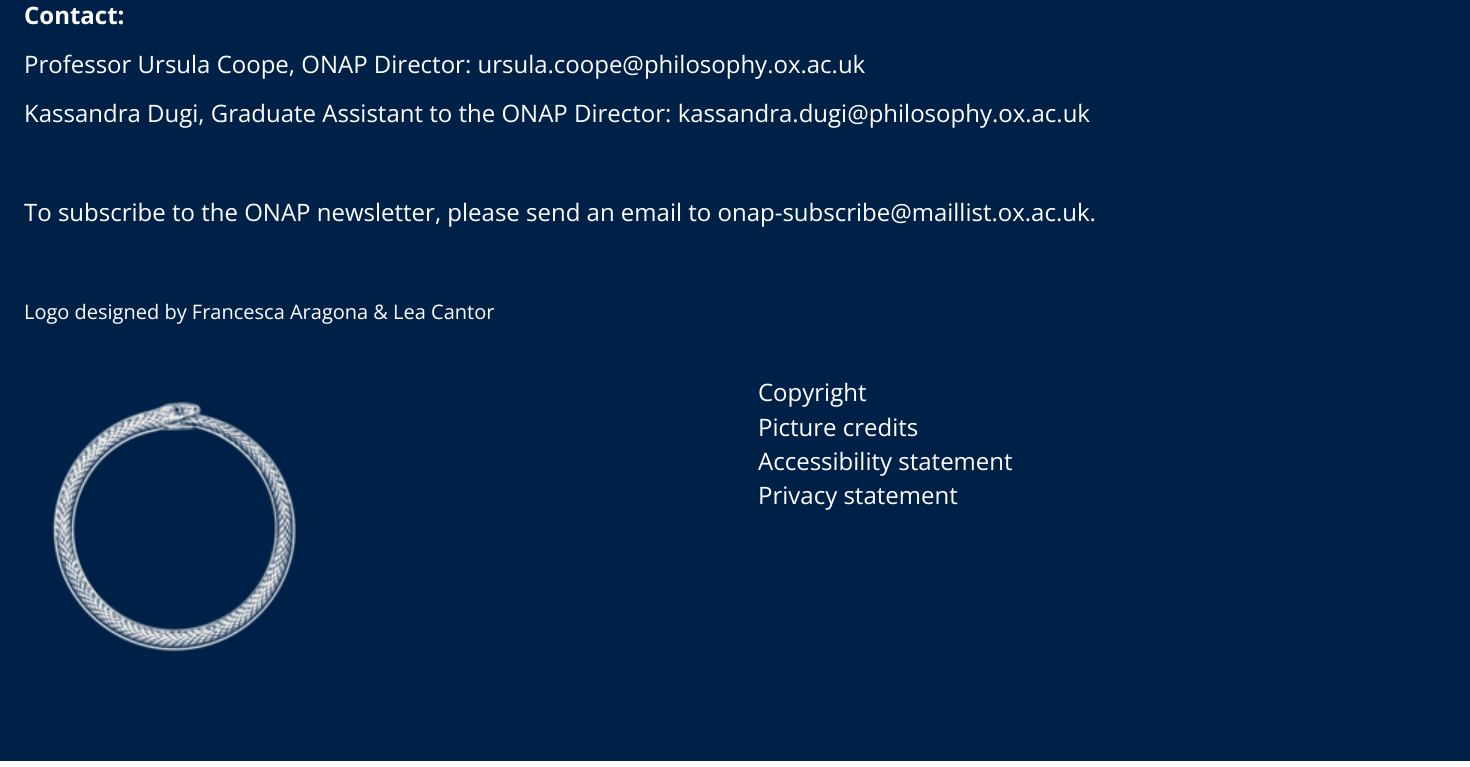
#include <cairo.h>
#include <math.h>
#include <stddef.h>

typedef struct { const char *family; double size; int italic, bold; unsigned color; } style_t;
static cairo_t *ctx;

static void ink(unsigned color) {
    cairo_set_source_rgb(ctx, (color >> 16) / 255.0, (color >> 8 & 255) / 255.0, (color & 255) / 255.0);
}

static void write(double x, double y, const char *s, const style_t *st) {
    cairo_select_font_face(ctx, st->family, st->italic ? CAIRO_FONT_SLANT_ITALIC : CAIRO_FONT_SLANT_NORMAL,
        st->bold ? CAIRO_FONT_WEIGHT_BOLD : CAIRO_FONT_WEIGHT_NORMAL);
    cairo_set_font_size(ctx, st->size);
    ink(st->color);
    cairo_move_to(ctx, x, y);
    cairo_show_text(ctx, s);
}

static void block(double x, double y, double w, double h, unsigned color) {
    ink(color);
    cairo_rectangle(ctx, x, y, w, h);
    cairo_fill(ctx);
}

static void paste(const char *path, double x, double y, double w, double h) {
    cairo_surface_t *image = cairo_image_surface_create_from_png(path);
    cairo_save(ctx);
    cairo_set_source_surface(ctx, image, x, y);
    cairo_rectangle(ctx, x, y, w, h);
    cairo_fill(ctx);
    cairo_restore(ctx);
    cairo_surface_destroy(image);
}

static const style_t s1 = {"Open Sans", 24, 0, 1, 0xffffff};
static const style_t s2 = {"Open Sans", 24, 0, 0, 0xffffff};
static const style_t s3 = {"Open Sans", 20, 0, 0, 0xffffff};

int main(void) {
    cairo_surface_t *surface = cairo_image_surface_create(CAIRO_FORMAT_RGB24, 1470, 767);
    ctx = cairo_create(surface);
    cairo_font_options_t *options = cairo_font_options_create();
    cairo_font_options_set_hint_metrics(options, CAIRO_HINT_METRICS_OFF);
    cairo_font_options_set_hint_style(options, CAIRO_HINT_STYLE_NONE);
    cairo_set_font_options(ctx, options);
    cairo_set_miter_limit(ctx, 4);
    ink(0xffffff);
    cairo_paint(ctx);
    block(0, 0, 1470, 761, 0x002147);
    write(24, 24, "Contact:", &s1);
    write(24, 73, "Professor Ursula Coope, ONAP Director: ursula.coope@philosophy.ox.ac.uk", &s2);
    write(24, 122, "Kassandra Dugi, Graduate Assistant to the ONAP Director: kassandra.dugi@philosophy.ox.ac.uk", &s2);
    write(24, 221, "To subscribe to the ONAP newsletter, please send an email to onap-subscribe@maillist.ox.ac.uk.", &s2);
    write(24, 319, "Logo designed by Francesca Aragona & Lea Cantor", &s3);
    paste("pic1.png", 52, 401, 244, 251);
    write(758, 401, "Copyright", &s2);
    write(758, 436, "Picture credits", &s2);
    write(758, 470, "Accessibility statement", &s2);
    write(758, 504, "Privacy statement", &s2);
    cairo_surface_write_to_png(surface, "screenshot.png");
    cairo_font_options_destroy(options);
    cairo_destroy(ctx);
    cairo_surface_destroy(surface);
    return 0;
}
